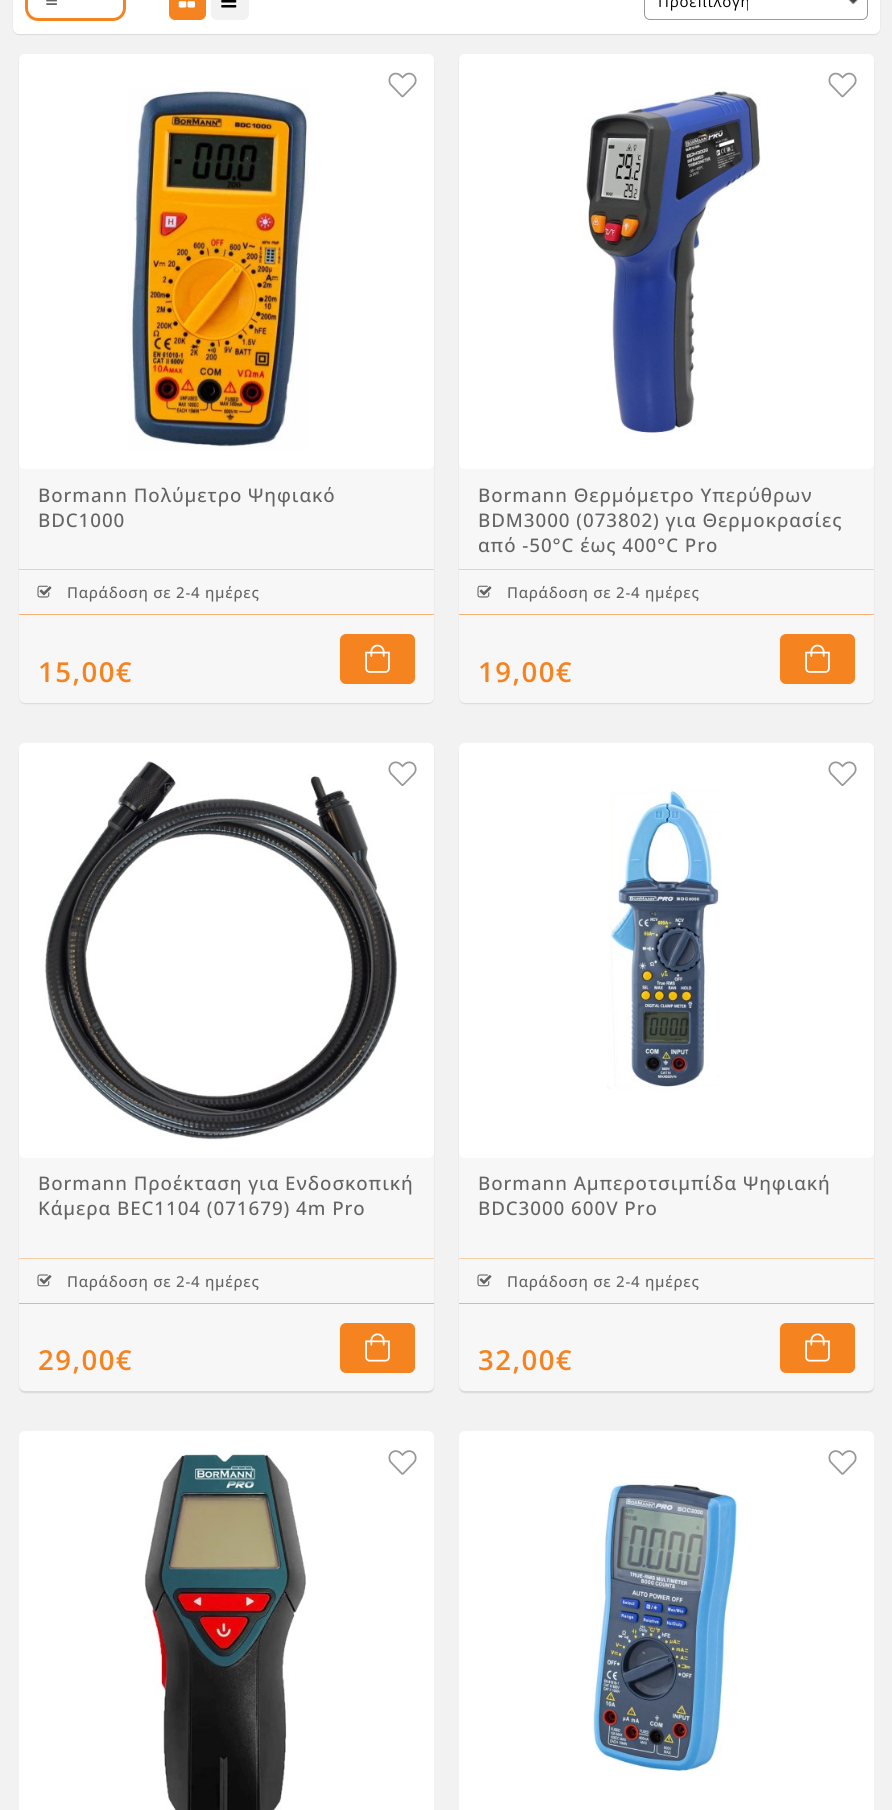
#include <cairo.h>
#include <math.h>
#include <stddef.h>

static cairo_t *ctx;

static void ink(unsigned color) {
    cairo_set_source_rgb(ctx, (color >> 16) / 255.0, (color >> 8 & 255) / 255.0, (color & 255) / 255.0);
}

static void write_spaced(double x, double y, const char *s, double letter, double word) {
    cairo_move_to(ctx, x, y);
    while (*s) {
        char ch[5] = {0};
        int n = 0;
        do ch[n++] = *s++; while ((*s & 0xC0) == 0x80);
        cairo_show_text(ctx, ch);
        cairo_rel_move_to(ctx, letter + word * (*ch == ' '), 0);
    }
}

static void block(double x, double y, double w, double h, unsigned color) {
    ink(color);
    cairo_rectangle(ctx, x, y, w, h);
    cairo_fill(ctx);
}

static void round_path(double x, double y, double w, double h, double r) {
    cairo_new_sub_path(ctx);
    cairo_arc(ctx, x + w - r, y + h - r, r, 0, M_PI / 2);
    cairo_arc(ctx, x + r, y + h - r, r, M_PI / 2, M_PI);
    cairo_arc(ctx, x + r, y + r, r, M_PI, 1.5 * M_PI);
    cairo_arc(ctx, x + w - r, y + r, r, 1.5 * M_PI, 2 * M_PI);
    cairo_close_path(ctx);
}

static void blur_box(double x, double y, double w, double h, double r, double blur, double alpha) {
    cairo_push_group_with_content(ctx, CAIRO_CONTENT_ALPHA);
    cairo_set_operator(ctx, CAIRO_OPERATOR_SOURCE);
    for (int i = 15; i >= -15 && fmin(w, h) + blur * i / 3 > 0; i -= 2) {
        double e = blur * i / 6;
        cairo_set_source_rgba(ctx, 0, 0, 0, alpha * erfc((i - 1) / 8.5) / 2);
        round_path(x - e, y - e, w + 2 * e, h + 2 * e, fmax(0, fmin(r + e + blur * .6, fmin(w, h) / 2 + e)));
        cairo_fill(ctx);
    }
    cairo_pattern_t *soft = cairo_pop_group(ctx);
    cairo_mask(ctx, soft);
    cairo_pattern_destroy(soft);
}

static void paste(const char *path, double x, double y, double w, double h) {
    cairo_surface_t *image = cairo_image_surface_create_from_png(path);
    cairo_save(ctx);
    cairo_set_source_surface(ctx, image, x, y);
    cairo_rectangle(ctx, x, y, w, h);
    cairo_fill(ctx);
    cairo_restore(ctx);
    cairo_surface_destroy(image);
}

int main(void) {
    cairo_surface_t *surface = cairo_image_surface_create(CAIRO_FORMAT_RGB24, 892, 1810);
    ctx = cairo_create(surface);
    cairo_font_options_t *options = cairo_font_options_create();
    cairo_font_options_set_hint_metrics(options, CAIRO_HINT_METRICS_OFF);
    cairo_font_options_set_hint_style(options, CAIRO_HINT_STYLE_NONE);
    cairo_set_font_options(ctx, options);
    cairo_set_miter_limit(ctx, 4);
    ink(0xf2f2f2);
    cairo_paint(ctx);
    ink(0x000000);
    blur_box(13, -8, 867, 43, 6, 0.5, 0.1);
    ink(0xffffff);
    round_path(13, -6, 867, 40, 6);
    cairo_fill(ctx);
    round_path(26.5, -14.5, 98, 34, 11.5);
    ink(0xf58320);
    cairo_set_line_width(ctx, 3);
    cairo_stroke(ctx);
    paste("pic1.png", 46, 0, 11, 5);
    round_path(169, -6, 37, 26, 6);
    cairo_fill(ctx);
    paste("pic2.png", 178, 1, 17, 7);
    ink(0xf2f2f2);
    round_path(211, -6, 38, 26, 6);
    cairo_fill(ctx);
    paste("pic3.png", 221, 0, 16, 8);
    paste("pic4.png", 848, 0, 10, 4);
    round_path(644.5, -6.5, 223, 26, 5.5);
    ink(0x999999);
    cairo_set_line_width(ctx, 1);
    cairo_stroke(ctx);
    cairo_select_font_face(ctx, "Open Sans", CAIRO_FONT_SLANT_NORMAL, CAIRO_FONT_WEIGHT_NORMAL);
    cairo_set_font_size(ctx, 15);
    ink(0x000000);
    write_spaced(658, 7, "Προεπιλογή", 0.75, 0);
    ink(0x000000);
    blur_box(19, 55, 415, 649, 6, 0.5, 0.1);
    ink(0xf7f7f7);
    round_path(19, 54, 415, 649, 6);
    cairo_fill(ctx);
    ink(0xffffff);
    round_path(19, 54, 415, 415, 6);
    cairo_fill(ctx);
    paste("pic5.png", 128, 88, 181, 362);
    cairo_select_font_face(ctx, "Open Sans Medium", CAIRO_FONT_SLANT_NORMAL, CAIRO_FONT_WEIGHT_NORMAL);
    cairo_set_font_size(ctx, 18.75);
    ink(0x636363);
    write_spaced(38, 502, "Bormann Πολύμετρο Ψηφιακό", 0.95, 0);
    write_spaced(38, 527, "BDC1000", 0.95, 0);
    block(19, 569, 415, 1, 0xfbcda6);
    block(19, 614, 415, 1, 0xf6b176);
    paste("pic6.png", 37, 585, 15, 13);
    cairo_set_font_size(ctx, 15);
    ink(0x636363);
    write_spaced(67, 598, "Παράδοση σε 2-4 ημέρες", 0.75, 0);
    cairo_select_font_face(ctx, "Open Sans SemiBold", CAIRO_FONT_SLANT_NORMAL, CAIRO_FONT_WEIGHT_NORMAL);
    cairo_set_font_size(ctx, 27.5);
    ink(0xf58320);
    write_spaced(38, 682, "15,00€", 1.5, 0);
    paste("pic7.png", 388, 72, 29, 26);
    round_path(340, 634, 75, 50, 6);
    cairo_fill(ctx);
    paste("pic8.png", 365, 644, 25, 29);
    ink(0x000000);
    blur_box(459, 55, 415, 649, 6, 0.5, 0.1);
    ink(0xf7f7f7);
    round_path(459, 54, 415, 649, 6);
    cairo_fill(ctx);
    ink(0xffffff);
    round_path(459, 54, 415, 415, 6);
    cairo_fill(ctx);
    paste("pic9.png", 581, 88, 180, 346);
    cairo_select_font_face(ctx, "Open Sans Medium", CAIRO_FONT_SLANT_NORMAL, CAIRO_FONT_WEIGHT_NORMAL);
    cairo_set_font_size(ctx, 18.75);
    ink(0x636363);
    write_spaced(478, 502, "Bormann Θερμόμετρο Υπερύθρων", 0.95, 0);
    write_spaced(478, 527, "BDM3000 (073802) για Θερμοκρασίες", 0.95, 0);
    write_spaced(478, 552, "από -50°C έως 400°C Pro", 0.95, 0);
    block(459, 569, 415, 1, 0xfbcda6);
    block(459, 614, 415, 1, 0xf6b176);
    paste("pic6.png", 477, 585, 15, 13);
    cairo_set_font_size(ctx, 15);
    ink(0x636363);
    write_spaced(507, 598, "Παράδοση σε 2-4 ημέρες", 0.75, 0);
    cairo_select_font_face(ctx, "Open Sans SemiBold", CAIRO_FONT_SLANT_NORMAL, CAIRO_FONT_WEIGHT_NORMAL);
    cairo_set_font_size(ctx, 27.5);
    ink(0xf58320);
    write_spaced(478, 682, "19,00€", 1.5, 0);
    paste("pic7.png", 828, 72, 29, 26);
    round_path(780, 634, 75, 50, 6);
    cairo_fill(ctx);
    paste("pic8.png", 805, 644, 25, 29);
    ink(0x000000);
    blur_box(19, 744, 415, 649, 6, 0.5, 0.1);
    ink(0xf7f7f7);
    round_path(19, 743, 415, 648, 6);
    cairo_fill(ctx);
    ink(0xffffff);
    round_path(19, 743, 415, 415, 6);
    cairo_fill(ctx);
    paste("pic10.png", 45, 761, 353, 380);
    cairo_select_font_face(ctx, "Open Sans Medium", CAIRO_FONT_SLANT_NORMAL, CAIRO_FONT_WEIGHT_NORMAL);
    cairo_set_font_size(ctx, 18.75);
    ink(0x636363);
    write_spaced(38, 1190, "Bormann Προέκταση για Ενδοσκοπική", 0.95, 0);
    write_spaced(38, 1215, "Κάμερα BEC1104 (071679) 4m Pro", 0.95, 0);
    block(19, 1258, 415, 1, 0xfbcda6);
    block(19, 1303, 415, 1, 0xf6b176);
    paste("pic11.png", 37, 1274, 15, 13);
    cairo_set_font_size(ctx, 15);
    ink(0x636363);
    write_spaced(67, 1287, "Παράδοση σε 2-4 ημέρες", 0.75, 0);
    cairo_select_font_face(ctx, "Open Sans SemiBold", CAIRO_FONT_SLANT_NORMAL, CAIRO_FONT_WEIGHT_NORMAL);
    cairo_set_font_size(ctx, 27.5);
    ink(0xf58320);
    write_spaced(38, 1370, "29,00€", 1.5, 0);
    paste("pic12.png", 388, 761, 29, 25);
    round_path(340, 1323, 75, 50, 6);
    cairo_fill(ctx);
    paste("pic13.png", 365, 1333, 25, 29);
    ink(0x000000);
    blur_box(459, 744, 415, 649, 6, 0.5, 0.1);
    ink(0xf7f7f7);
    round_path(459, 743, 415, 648, 6);
    cairo_fill(ctx);
    ink(0xffffff);
    round_path(459, 743, 415, 415, 6);
    cairo_fill(ctx);
    paste("pic14.png", 607, 788, 115, 306);
    cairo_select_font_face(ctx, "Open Sans Medium", CAIRO_FONT_SLANT_NORMAL, CAIRO_FONT_WEIGHT_NORMAL);
    cairo_set_font_size(ctx, 18.75);
    ink(0x636363);
    write_spaced(478, 1190, "Bormann Αμπεροτσιμπίδα Ψηφιακή", 0.95, 0);
    write_spaced(478, 1215, "BDC3000 600V Pro", 0.95, 0);
    block(459, 1258, 415, 1, 0xfbcda6);
    block(459, 1303, 415, 1, 0xf6b176);
    paste("pic11.png", 477, 1274, 15, 13);
    cairo_set_font_size(ctx, 15);
    ink(0x636363);
    write_spaced(507, 1287, "Παράδοση σε 2-4 ημέρες", 0.75, 0);
    cairo_select_font_face(ctx, "Open Sans SemiBold", CAIRO_FONT_SLANT_NORMAL, CAIRO_FONT_WEIGHT_NORMAL);
    cairo_set_font_size(ctx, 27.5);
    ink(0xf58320);
    write_spaced(478, 1370, "32,00€", 1.5, 0);
    paste("pic12.png", 828, 761, 29, 25);
    round_path(780, 1323, 75, 50, 6);
    cairo_fill(ctx);
    paste("pic13.png", 805, 1333, 25, 29);
    ink(0xffffff);
    round_path(19, 1431, 415, 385, 6);
    cairo_fill(ctx);
    paste("pic15.png", 144, 1450, 162, 360);
    paste("pic16.png", 388, 1450, 29, 25);
    round_path(459, 1431, 415, 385, 6);
    cairo_fill(ctx);
    paste("pic17.png", 593, 1476, 153, 296);
    paste("pic16.png", 828, 1450, 29, 25);
    cairo_surface_write_to_png(surface, "screenshot.png");
    cairo_font_options_destroy(options);
    cairo_destroy(ctx);
    cairo_surface_destroy(surface);
    return 0;
}
